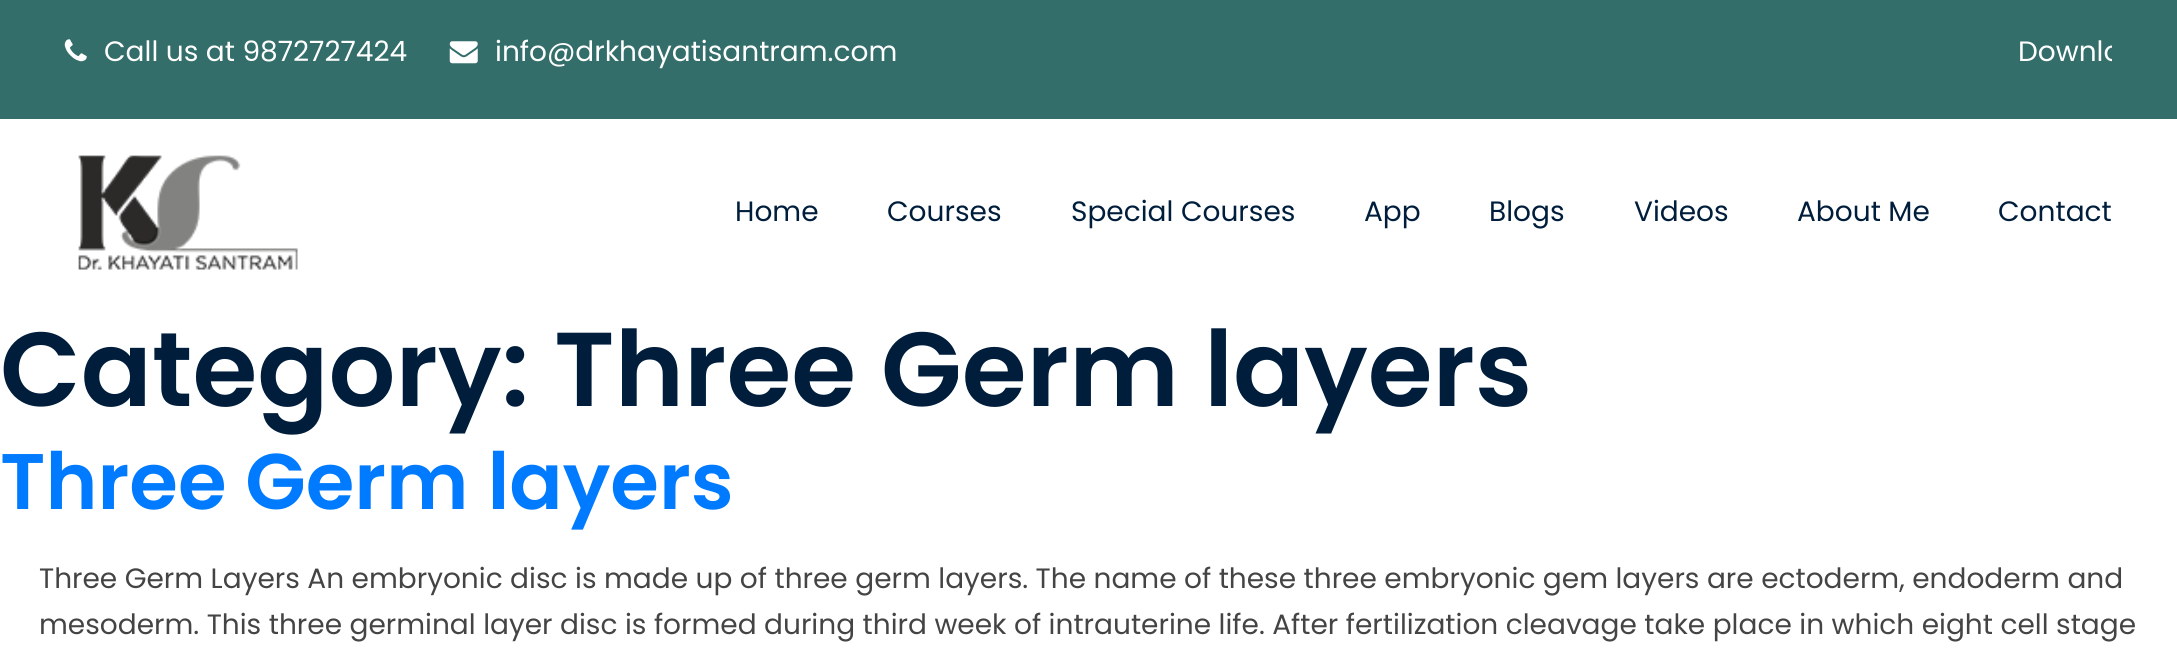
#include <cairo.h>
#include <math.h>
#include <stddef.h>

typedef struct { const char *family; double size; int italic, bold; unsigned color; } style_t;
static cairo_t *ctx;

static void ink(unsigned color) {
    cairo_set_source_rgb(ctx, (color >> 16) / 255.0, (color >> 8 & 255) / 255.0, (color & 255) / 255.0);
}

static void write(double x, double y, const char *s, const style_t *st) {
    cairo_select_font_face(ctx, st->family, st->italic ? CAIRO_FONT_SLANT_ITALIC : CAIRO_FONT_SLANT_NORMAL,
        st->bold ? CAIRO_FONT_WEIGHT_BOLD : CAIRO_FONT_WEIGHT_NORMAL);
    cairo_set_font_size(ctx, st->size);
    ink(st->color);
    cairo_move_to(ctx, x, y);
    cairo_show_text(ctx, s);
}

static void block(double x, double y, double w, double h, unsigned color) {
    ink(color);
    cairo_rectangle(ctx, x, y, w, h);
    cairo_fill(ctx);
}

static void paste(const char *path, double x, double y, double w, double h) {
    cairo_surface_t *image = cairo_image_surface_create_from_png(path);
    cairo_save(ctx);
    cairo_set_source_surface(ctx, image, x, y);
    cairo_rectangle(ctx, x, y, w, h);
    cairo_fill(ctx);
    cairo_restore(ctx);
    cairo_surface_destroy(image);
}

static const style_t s1 = {"Poppins", 28, 0, 0, 0xffffff};
static const style_t s2 = {"Poppins", 28, 0, 0, 0x001e3c};
static const style_t s3 = {"Poppins SemiBold", 105, 0, 0, 0x001e3c};
static const style_t s4 = {"Poppins SemiBold", 78.75, 0, 0, 0x007bff};
static const style_t s5 = {"Poppins", 28, 0, 0, 0x444444};

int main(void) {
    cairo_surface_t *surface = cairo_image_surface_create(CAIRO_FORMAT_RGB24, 2177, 650);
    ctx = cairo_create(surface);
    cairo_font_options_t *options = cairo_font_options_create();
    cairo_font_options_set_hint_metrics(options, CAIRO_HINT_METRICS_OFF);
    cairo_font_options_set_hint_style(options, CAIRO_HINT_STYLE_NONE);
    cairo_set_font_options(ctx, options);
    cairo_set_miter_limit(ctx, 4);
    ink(0xffffff);
    cairo_paint(ctx);
    block(0, 0, 2177, 119, 0x336e6a);
    paste("pic1.png", 64, 39, 23, 23);
    write(104, 61, "Call us at 9872727424", &s1);
    paste("pic2.png", 449, 41, 29, 23);
    write(495, 61, "info@drkhayatisantram.com", &s1);
    cairo_save(ctx);
    cairo_rectangle(ctx, 1115, 30, 997, 45);
    cairo_clip(ctx);
    write(2018, 61, "Downlo", &s1);
    cairo_restore(ctx);
    paste("pic3.png", 78, 155, 220, 115);
    write(735, 221, "Home", &s2);
    write(887, 221, "Courses", &s2);
    write(1071, 221, "Special Courses", &s2);
    write(1364, 221, "App", &s2);
    write(1489, 221, "Blogs", &s2);
    write(1634, 221, "Videos", &s2);
    write(1797, 221, "About Me", &s2);
    write(1998, 221, "Contact", &s2);
    write(0, 406, "Category: Three Germ layers", &s3);
    write(0, 509, "Three Germ layers", &s4);
    write(39, 588, "Three Germ Layers An embryonic disc is made up of three germ layers. The name of these three embryonic gem layers are ectoderm, endoderm and", &s5);
    write(39, 634, "mesoderm. This three germinal layer disc is formed during third week of intrauterine life. After fertilization cleavage take place in which eight cell stage", &s5);
    cairo_surface_write_to_png(surface, "screenshot.png");
    cairo_font_options_destroy(options);
    cairo_destroy(ctx);
    cairo_surface_destroy(surface);
    return 0;
}
